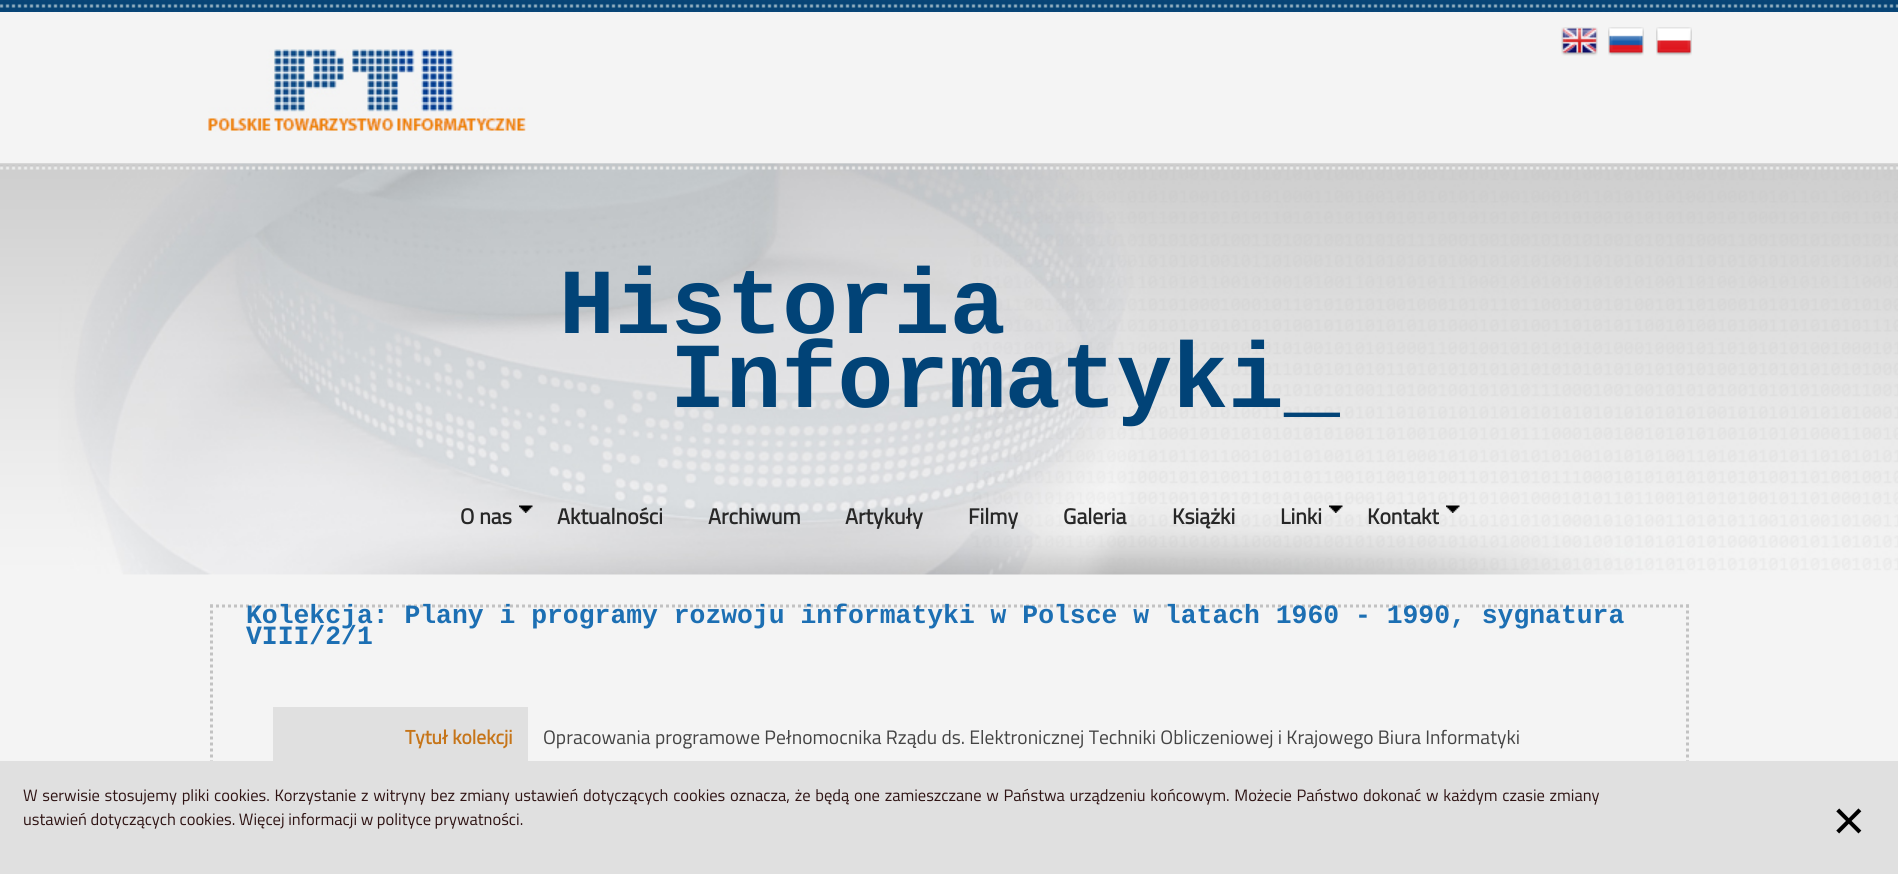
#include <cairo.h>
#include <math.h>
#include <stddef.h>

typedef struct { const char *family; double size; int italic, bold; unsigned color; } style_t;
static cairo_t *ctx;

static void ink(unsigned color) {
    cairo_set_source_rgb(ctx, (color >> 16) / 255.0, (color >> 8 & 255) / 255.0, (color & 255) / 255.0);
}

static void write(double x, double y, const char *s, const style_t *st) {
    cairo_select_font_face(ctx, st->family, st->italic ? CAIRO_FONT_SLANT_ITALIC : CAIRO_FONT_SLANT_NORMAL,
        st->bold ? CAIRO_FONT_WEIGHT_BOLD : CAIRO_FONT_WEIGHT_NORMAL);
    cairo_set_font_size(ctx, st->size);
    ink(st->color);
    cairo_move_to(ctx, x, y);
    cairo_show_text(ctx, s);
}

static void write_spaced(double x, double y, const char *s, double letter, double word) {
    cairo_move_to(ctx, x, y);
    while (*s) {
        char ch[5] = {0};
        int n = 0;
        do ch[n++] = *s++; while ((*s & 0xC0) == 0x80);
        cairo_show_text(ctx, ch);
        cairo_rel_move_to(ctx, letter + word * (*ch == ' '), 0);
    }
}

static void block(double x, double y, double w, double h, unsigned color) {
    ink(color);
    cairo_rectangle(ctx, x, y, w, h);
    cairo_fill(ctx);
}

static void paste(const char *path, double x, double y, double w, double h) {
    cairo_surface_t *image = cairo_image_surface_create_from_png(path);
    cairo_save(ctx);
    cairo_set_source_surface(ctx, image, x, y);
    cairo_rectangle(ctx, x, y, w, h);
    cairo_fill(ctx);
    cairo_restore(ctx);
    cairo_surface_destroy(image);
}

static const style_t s1 = {"Liberation Mono", 93, 0, 1, 0x014377};
static const style_t s2 = {"Titillium Web", 21.75, 0, 1, 0x272727};
static const style_t s3 = {"Liberation Mono", 26.4, 0, 1, 0x1c6fb3};
static const style_t s4 = {"Titillium Web", 19.5, 0, 1, 0xc67519};
static const style_t s5 = {"Titillium Web", 19.5, 0, 0, 0x444444};
static const style_t s6 = {"Titillium Web", 16.5, 0, 0, 0x2f1414};
static const style_t s7 = {"Titillium Web", 60, 0, 0, 0x000000};

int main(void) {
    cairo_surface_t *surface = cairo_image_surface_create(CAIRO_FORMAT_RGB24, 1898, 874);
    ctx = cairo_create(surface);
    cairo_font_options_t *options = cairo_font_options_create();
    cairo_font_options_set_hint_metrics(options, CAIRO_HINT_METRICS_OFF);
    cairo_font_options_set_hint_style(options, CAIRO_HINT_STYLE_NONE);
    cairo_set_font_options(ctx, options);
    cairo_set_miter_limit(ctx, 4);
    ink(0xf4f4f4);
    cairo_paint(ctx);
    paste("pic1.png", 0, 0, 1898, 12);
    paste("pic2.png", 1561, 27, 37, 29);
    paste("pic3.png", 1608, 27, 36, 29);
    paste("pic4.png", 1656, 27, 36, 29);
    paste("pic5.png", 208, 49, 318, 83);
    paste("pic6.png", 0, 163, 1898, 1);
    paste("pic8.png", 0, 163, 1898, 412);
    paste("pic7.png", 0, 165, 1898, 5);
    write(559, 333, "Historia", &s1);
    write(670, 407, "Informatyki_", &s1);
    paste("pic9.png", 519, 505, 14, 8);
    write(460, 524, "O nas", &s2);
    write(557, 524, "Aktualności", &s2);
    write(708, 524, "Archiwum", &s2);
    write(845, 524, "Artykuły", &s2);
    write(968, 524, "Filmy", &s2);
    write(1063, 524, "Galeria", &s2);
    write(1172, 524, "Książki", &s2);
    paste("pic10.png", 1329, 505, 14, 8);
    write(1280, 524, "Linki", &s2);
    paste("pic11.png", 1446, 505, 14, 8);
    write(1367, 524, "Kontakt", &s2);
    cairo_new_path(ctx);
    cairo_move_to(ctx, 210, 606);
    cairo_line_to(ctx, 1689, 606);
    ink(0xc2c2c2);
    cairo_set_line_width(ctx, 3);
    cairo_set_dash(ctx, (double[]){3, 3}, 2, 0);
    cairo_stroke(ctx);
    cairo_new_path(ctx);
    cairo_move_to(ctx, 1687.5, 604.5);
    cairo_line_to(ctx, 1687.5, 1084.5);
    cairo_stroke(ctx);
    cairo_new_path(ctx);
    cairo_move_to(ctx, 211.5, 604.5);
    cairo_line_to(ctx, 211.5, 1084.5);
    cairo_stroke(ctx);
    write(246, 623, "Kolekcja: Plany i programy rozwoju informatyki w Polsce w latach 1960 - 1990, sygnatura", &s3);
    write(246, 644, "VIII/2/1", &s3);
    block(273, 707, 255, 54, 0xe0e0e0);
    write(405, 744, "Tytuł kolekcji", &s4);
    write(543, 744, "Opracowania programowe Pełnomocnika Rządu ds. Elektronicznej Techniki Obliczeniowej i Krajowego Biura Informatyki", &s5);
    block(0, 761, 1898, 113, 0xe0e0e0);
    cairo_set_font_size(ctx, 16.5);
    ink(0x2f1414);
    write_spaced(23, 801, "W serwisie stosujemy pliki cookies. Korzystanie z witryny bez zmiany ustawień dotyczących cookies oznacza, że będą one zamieszczane w Państwa urządzeniu końcowym. Możecie Państwo dokonać w każdym czasie zmiany", 0, 1.1);
    write(23, 825, "ustawień dotyczących cookies. Więcej informacji w polityce prywatności.", &s6);
    write(1832, 836, "×", &s7);
    cairo_surface_write_to_png(surface, "screenshot.png");
    cairo_font_options_destroy(options);
    cairo_destroy(ctx);
    cairo_surface_destroy(surface);
    return 0;
}
